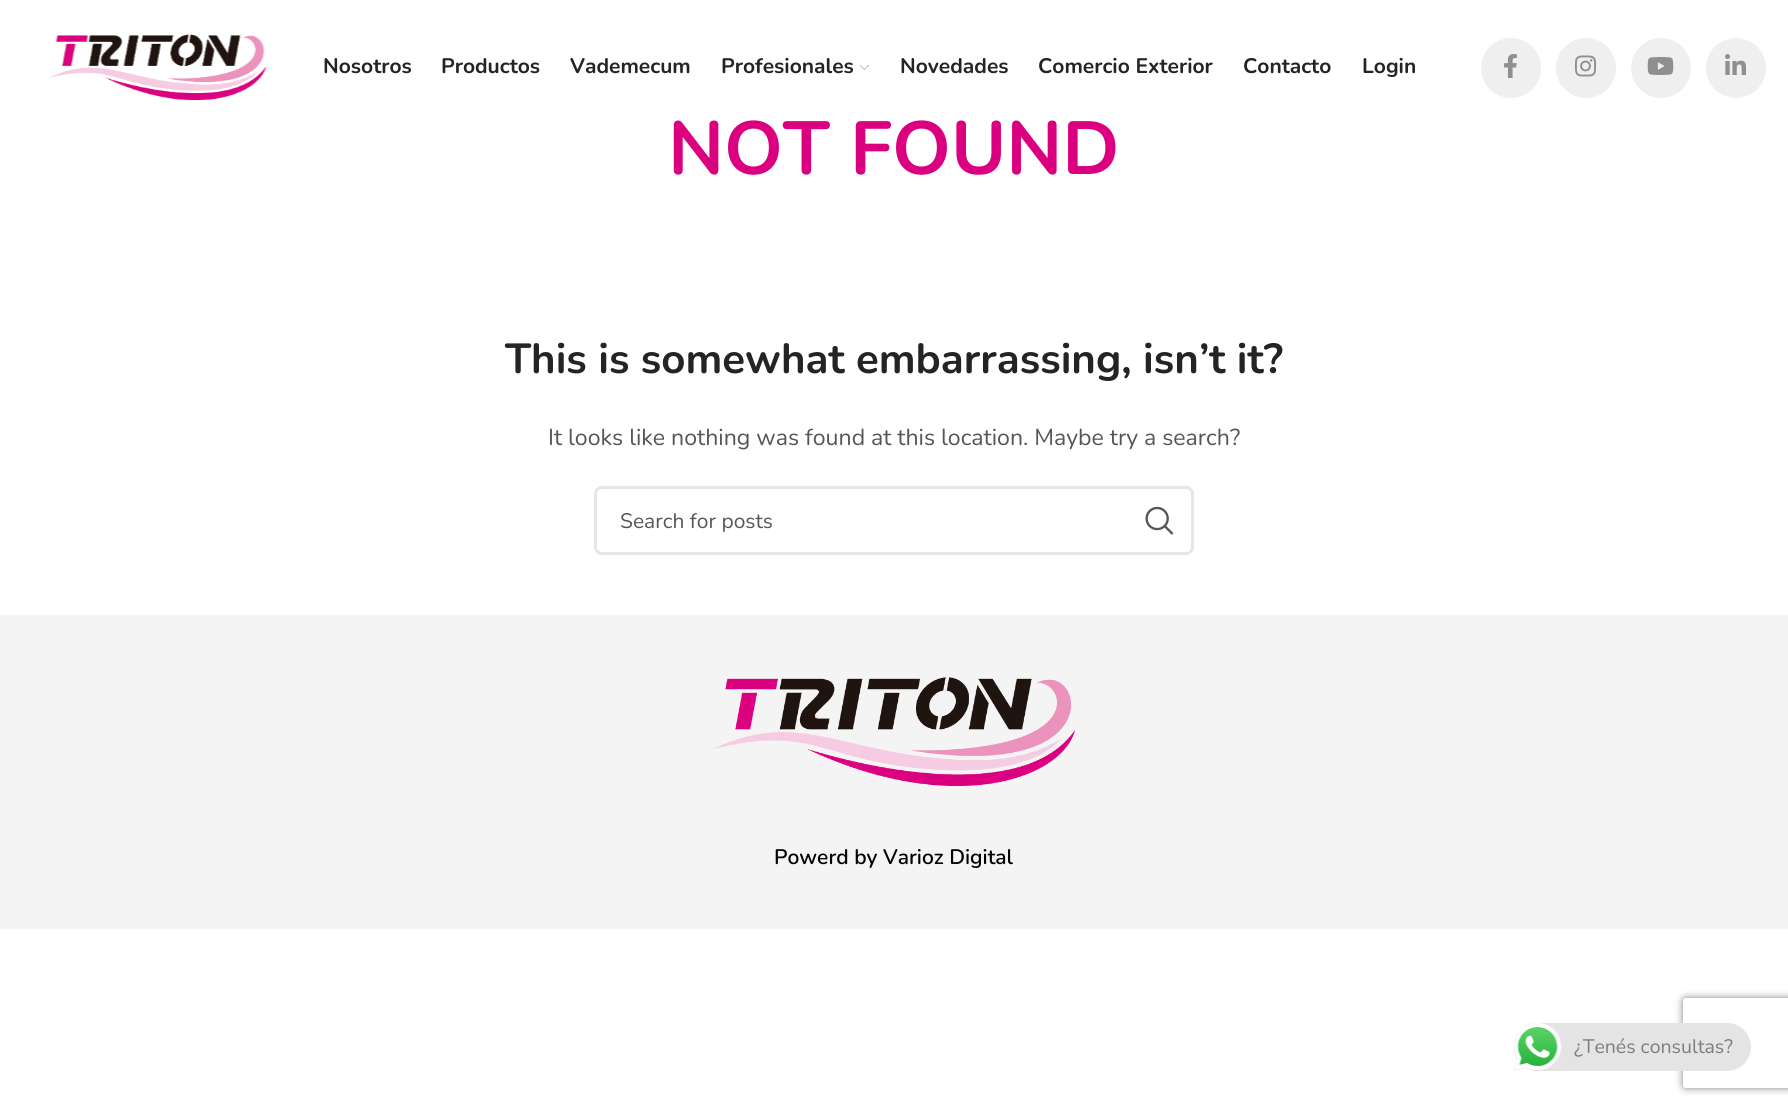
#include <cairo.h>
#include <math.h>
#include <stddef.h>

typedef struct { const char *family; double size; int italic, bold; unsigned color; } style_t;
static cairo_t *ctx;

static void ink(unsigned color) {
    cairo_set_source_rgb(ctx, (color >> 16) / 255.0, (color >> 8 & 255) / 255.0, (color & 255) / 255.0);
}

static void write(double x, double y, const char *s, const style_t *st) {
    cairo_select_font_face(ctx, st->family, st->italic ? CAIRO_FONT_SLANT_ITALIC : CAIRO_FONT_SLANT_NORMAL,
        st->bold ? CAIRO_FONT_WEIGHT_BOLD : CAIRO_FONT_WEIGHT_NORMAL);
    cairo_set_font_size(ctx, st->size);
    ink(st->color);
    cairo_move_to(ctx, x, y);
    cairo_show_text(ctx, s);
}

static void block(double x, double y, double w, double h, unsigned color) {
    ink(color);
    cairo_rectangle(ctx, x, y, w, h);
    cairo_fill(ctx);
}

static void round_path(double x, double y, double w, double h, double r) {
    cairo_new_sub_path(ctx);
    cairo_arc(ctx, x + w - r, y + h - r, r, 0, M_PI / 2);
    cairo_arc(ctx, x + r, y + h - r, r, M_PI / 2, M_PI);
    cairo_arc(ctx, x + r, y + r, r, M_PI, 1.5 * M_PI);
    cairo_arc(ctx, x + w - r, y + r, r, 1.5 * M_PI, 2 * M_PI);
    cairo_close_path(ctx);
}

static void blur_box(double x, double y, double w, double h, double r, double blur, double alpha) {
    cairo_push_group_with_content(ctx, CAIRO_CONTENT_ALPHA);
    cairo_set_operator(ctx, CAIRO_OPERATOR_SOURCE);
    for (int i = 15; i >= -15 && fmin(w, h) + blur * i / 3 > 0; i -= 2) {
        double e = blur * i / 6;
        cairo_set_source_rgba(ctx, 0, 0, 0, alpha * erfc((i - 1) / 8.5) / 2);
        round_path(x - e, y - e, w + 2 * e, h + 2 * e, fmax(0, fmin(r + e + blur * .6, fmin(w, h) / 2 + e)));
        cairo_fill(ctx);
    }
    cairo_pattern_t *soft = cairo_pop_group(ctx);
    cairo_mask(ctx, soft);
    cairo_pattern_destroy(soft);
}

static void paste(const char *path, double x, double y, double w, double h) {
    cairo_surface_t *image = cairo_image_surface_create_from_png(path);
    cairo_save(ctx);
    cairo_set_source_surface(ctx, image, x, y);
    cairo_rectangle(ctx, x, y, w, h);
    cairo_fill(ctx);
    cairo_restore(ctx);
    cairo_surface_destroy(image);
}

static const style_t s1 = {"Nunito", 21, 0, 1, 0x242424};
static const style_t s2 = {"Nunito", 75, 0, 1, 0xdb0080};
static const style_t s3 = {"Nunito", 42, 0, 1, 0x242424};
static const style_t s4 = {"Nunito", 23.1, 0, 0, 0x565656};
static const style_t s5 = {"Nunito", 21, 0, 0, 0x565656};
static const style_t s6 = {"Nunito SemiBold", 21, 0, 0, 0x000000};
static const style_t s7 = {"Nunito", 19.5, 0, 0, 0x7f7d7d};

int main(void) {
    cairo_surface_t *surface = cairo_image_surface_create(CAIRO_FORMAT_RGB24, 1788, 1108);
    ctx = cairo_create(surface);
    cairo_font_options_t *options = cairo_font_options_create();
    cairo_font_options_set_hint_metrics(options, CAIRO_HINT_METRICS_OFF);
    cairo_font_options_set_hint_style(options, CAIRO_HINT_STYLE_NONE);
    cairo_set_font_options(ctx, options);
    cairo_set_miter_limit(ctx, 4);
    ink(0xffffff);
    cairo_paint(ctx);
    paste("pic1.png", 49, 34, 218, 67);
    write(323, 73, "Nosotros", &s1);
    write(441, 73, "Productos", &s1);
    write(570, 73, "Vademecum", &s1);
    write(721, 73, "Profesionales", &s1);
    paste("pic2.png", 859, 64, 11, 6);
    write(900, 73, "Novedades", &s1);
    write(1038, 73, "Comercio Exterior", &s1);
    write(1243, 73, "Contacto", &s1);
    write(1362, 73, "Login", &s1);
    ink(0xefefef);
    cairo_new_path(ctx);
    cairo_arc(ctx, 1511, 68, 30, 0, 2 * M_PI);
    cairo_fill(ctx);
    paste("pic3.png", 1504, 54, 13, 24);
    cairo_arc(ctx, 1586, 68, 30, 0, 2 * M_PI);
    cairo_fill(ctx);
    paste("pic4.png", 1575, 55, 21, 22);
    cairo_arc(ctx, 1661, 68, 30, 0, 2 * M_PI);
    cairo_fill(ctx);
    paste("pic5.png", 1647, 57, 27, 18);
    cairo_arc(ctx, 1736, 68, 30, 0, 2 * M_PI);
    cairo_fill(ctx);
    paste("pic6.png", 1725, 54, 21, 21);
    write(668, 174, "NOT FOUND", &s2);
    write(505, 373, "This is somewhat embarrassing, isn’t it?", &s3);
    write(548, 445, "It looks like nothing was found at this location. Maybe try a search?", &s4);
    round_path(595.5, 487.5, 597, 66, 6.5);
    ink(0xe6e6e6);
    cairo_set_line_width(ctx, 3);
    cairo_stroke(ctx);
    write(620, 528, "Search for posts", &s5);
    paste("pic7.png", 1145, 506, 29, 29);
    block(0, 615, 1788, 314, 0xf4f4f4);
    paste("pic8.png", 713, 677, 362, 109);
    write(774, 864, "Powerd by Varioz Digital", &s6);
    cairo_save(ctx);
    cairo_set_fill_rule(ctx, CAIRO_FILL_RULE_EVEN_ODD);
    cairo_new_path(ctx);
    cairo_move_to(ctx, 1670, 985);
    cairo_line_to(ctx, 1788, 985);
    cairo_line_to(ctx, 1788, 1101);
    cairo_line_to(ctx, 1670, 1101);
    cairo_close_path(ctx);
    cairo_move_to(ctx, 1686, 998);
    cairo_line_to(ctx, 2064, 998);
    cairo_curve_to(ctx, 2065.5, 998, 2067, 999.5, 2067, 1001);
    cairo_line_to(ctx, 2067, 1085);
    cairo_curve_to(ctx, 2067, 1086.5, 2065.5, 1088, 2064, 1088);
    cairo_line_to(ctx, 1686, 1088);
    cairo_curve_to(ctx, 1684.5, 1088, 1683, 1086.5, 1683, 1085);
    cairo_line_to(ctx, 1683, 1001);
    cairo_curve_to(ctx, 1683, 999.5, 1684.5, 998, 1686, 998);
    cairo_close_path(ctx);
    cairo_clip(ctx);
    ink(0x808080);
    blur_box(1683, 998, 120, 90, 3, 4, 1);
    cairo_restore(ctx);
    ink(0xe4e4e4);
    round_path(1514, 1023, 237, 48, 24);
    cairo_fill(ctx);
    paste("pic9.png", 1513, 1023, 49, 48);
    write(1574, 1053, "¿Tenés consultas?", &s7);
    cairo_surface_write_to_png(surface, "screenshot.png");
    cairo_font_options_destroy(options);
    cairo_destroy(ctx);
    cairo_surface_destroy(surface);
    return 0;
}
